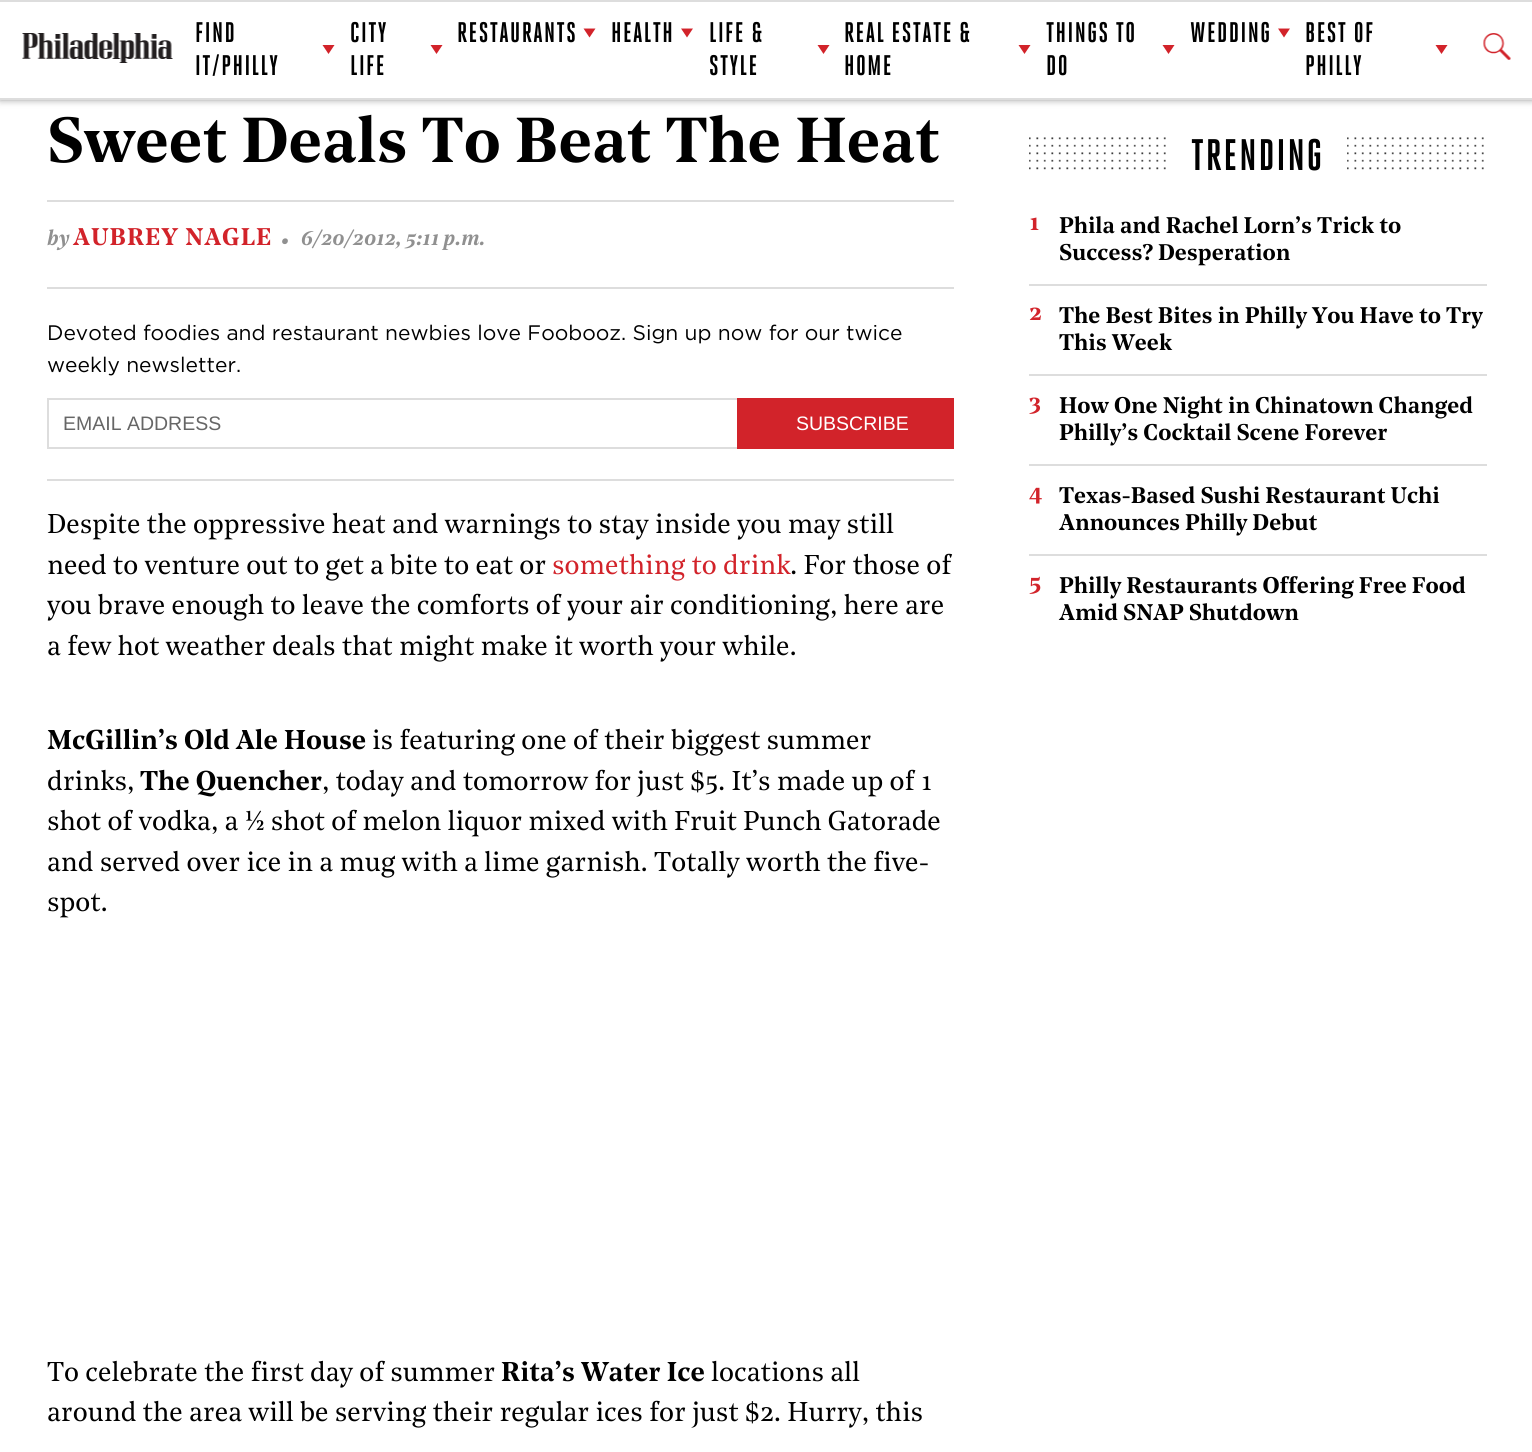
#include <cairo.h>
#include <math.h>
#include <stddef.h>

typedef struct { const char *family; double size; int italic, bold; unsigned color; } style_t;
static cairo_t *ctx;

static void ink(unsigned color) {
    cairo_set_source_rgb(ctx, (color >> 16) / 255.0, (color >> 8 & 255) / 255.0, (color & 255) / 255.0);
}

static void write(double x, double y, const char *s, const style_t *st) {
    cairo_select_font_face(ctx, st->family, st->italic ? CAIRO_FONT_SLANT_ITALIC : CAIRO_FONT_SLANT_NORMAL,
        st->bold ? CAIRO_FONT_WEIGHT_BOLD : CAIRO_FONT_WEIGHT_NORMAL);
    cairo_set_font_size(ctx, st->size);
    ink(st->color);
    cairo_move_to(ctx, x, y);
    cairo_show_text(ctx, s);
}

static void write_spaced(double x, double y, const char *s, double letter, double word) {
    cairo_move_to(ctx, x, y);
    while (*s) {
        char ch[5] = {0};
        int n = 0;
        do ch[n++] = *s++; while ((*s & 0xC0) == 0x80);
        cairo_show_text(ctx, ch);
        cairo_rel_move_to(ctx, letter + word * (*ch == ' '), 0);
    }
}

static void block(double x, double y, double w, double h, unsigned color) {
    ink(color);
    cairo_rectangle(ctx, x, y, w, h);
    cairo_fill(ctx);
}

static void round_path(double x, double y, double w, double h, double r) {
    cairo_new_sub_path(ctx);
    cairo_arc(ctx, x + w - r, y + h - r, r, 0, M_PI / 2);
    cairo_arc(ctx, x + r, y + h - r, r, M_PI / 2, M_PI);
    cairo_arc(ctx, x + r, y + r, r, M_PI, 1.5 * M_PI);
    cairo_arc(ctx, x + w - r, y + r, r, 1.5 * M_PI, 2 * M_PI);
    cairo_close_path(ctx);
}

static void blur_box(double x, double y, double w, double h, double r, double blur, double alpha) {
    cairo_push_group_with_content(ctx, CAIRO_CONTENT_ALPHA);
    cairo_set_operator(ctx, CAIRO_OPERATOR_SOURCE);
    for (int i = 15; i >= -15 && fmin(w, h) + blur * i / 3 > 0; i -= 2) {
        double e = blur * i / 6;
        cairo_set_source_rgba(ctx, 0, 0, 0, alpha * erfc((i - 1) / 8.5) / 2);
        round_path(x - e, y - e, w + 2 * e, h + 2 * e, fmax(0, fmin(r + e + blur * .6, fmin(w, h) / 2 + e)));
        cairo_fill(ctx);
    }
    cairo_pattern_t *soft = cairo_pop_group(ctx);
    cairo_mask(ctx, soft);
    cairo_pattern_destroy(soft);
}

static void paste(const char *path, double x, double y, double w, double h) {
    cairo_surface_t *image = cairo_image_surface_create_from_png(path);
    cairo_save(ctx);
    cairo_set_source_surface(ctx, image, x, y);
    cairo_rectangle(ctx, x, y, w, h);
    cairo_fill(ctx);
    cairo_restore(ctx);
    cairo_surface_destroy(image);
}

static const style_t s1 = {"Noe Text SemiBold", 63, 0, 0, 0x000000};
static const style_t s2 = {"Noe Text SemiBold", 21, 1, 0, 0x909090};
static const style_t s3 = {"Noe Text SemiBold", 33, 1, 0, 0x909090};
static const style_t s4 = {"Gotham", 21, 0, 0, 0x000000};
static const style_t s5 = {"Liberation Sans", 19.5, 0, 0, 0x666666};
static const style_t s6 = {"Liberation Sans", 19.5, 0, 0, 0xffffff};
static const style_t s7 = {"Noe Text", 27, 0, 0, 0x000000};
static const style_t s8 = {"Noe Text", 27, 0, 0, 0xd2232a};
static const style_t s9 = {"Noe Text SemiBold", 27, 0, 0, 0x000000};
static const style_t s10 = {"Noe Text SemiBold", 24, 0, 0, 0xd2232a};
static const style_t s11 = {"Noe Text SemiBold", 22.5, 0, 0, 0x000000};

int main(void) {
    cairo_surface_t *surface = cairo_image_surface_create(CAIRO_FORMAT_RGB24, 1532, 1452);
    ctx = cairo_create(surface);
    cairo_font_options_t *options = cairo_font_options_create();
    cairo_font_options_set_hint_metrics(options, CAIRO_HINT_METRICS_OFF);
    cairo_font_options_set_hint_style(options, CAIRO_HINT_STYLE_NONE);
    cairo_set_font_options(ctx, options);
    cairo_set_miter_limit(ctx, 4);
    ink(0xffffff);
    cairo_paint(ctx);
    ink(0x000000);
    blur_box(0, 0, 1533, 99, 0, 4, 0.5);
    block(0, 2, 1532, 96, 0xffffff);
    block(0, 0, 1532, 2, 0xdddddd);
    block(0, 98, 1532, 2, 0xdddddd);
    paste("pic1.png", 22, 33, 151, 30);
    cairo_select_font_face(ctx, "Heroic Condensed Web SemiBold", CAIRO_FONT_SLANT_NORMAL, CAIRO_FONT_WEIGHT_NORMAL);
    cairo_set_font_size(ctx, 27);
    ink(0x000000);
    write_spaced(195, 42, "FIND", 1.4, 0);
    ink(0xd2232a);
    cairo_new_path(ctx);
    cairo_move_to(ctx, 322.5, 45);
    cairo_line_to(ctx, 334.5, 45);
    cairo_line_to(ctx, 328.5, 54);
    cairo_close_path(ctx);
    cairo_fill(ctx);
    ink(0x000000);
    write_spaced(195, 75, "IT/PHILLY", 1.4, 0);
    write_spaced(350, 42, "CITY", 1.4, 0);
    ink(0xd2232a);
    cairo_new_path(ctx);
    cairo_move_to(ctx, 430.5, 45);
    cairo_line_to(ctx, 442.5, 45);
    cairo_line_to(ctx, 436.5, 54);
    cairo_close_path(ctx);
    cairo_fill(ctx);
    ink(0x000000);
    write_spaced(350, 75, "LIFE", 1.4, 0);
    write_spaced(457, 42, "RESTAURANTS", 1.4, 0);
    ink(0xd2232a);
    cairo_new_path(ctx);
    cairo_move_to(ctx, 583.5, 28.5);
    cairo_line_to(ctx, 595.5, 28.5);
    cairo_line_to(ctx, 589.5, 37.5);
    cairo_close_path(ctx);
    cairo_fill(ctx);
    ink(0x000000);
    write_spaced(611, 42, "HEALTH", 1.4, 0);
    ink(0xd2232a);
    cairo_new_path(ctx);
    cairo_move_to(ctx, 681, 28.5);
    cairo_line_to(ctx, 693, 28.5);
    cairo_line_to(ctx, 687, 37.5);
    cairo_close_path(ctx);
    cairo_fill(ctx);
    ink(0x000000);
    write_spaced(709, 42, "LIFE &", 1.4, 0);
    ink(0xd2232a);
    cairo_new_path(ctx);
    cairo_move_to(ctx, 817.5, 45);
    cairo_line_to(ctx, 829.5, 45);
    cairo_line_to(ctx, 823.5, 54);
    cairo_close_path(ctx);
    cairo_fill(ctx);
    ink(0x000000);
    write_spaced(709, 75, "STYLE", 1.4, 0);
    write_spaced(844, 42, "REAL ESTATE &", 1.4, 0);
    ink(0xd2232a);
    cairo_new_path(ctx);
    cairo_move_to(ctx, 1018.5, 45);
    cairo_line_to(ctx, 1030.5, 45);
    cairo_line_to(ctx, 1024.5, 54);
    cairo_close_path(ctx);
    cairo_fill(ctx);
    ink(0x000000);
    write_spaced(844, 75, "HOME", 1.4, 0);
    write_spaced(1046, 42, "THINGS TO", 1.4, 0);
    ink(0xd2232a);
    cairo_new_path(ctx);
    cairo_move_to(ctx, 1162.5, 45);
    cairo_line_to(ctx, 1174.5, 45);
    cairo_line_to(ctx, 1168.5, 54);
    cairo_close_path(ctx);
    cairo_fill(ctx);
    ink(0x000000);
    write_spaced(1046, 75, "DO", 1.4, 0);
    write_spaced(1190, 42, "WEDDING", 1.4, 0);
    ink(0xd2232a);
    cairo_new_path(ctx);
    cairo_move_to(ctx, 1278, 28.5);
    cairo_line_to(ctx, 1290, 28.5);
    cairo_line_to(ctx, 1284, 37.5);
    cairo_close_path(ctx);
    cairo_fill(ctx);
    ink(0x000000);
    write_spaced(1305, 42, "BEST OF", 1.4, 0);
    ink(0xd2232a);
    cairo_new_path(ctx);
    cairo_move_to(ctx, 1435.5, 45);
    cairo_line_to(ctx, 1447.5, 45);
    cairo_line_to(ctx, 1441.5, 54);
    cairo_close_path(ctx);
    cairo_fill(ctx);
    ink(0x000000);
    write_spaced(1305, 75, "PHILLY", 1.4, 0);
    paste("pic2.png", 1483, 33, 28, 27);
    write(47, 162, "Sweet Deals To Beat The Heat", &s1);
    block(47, 200, 907, 2, 0xdddddd);
    block(47, 287, 907, 2, 0xdddddd);
    write(47, 245, "by", &s2);
    cairo_select_font_face(ctx, "Noe Text SemiBold", CAIRO_FONT_SLANT_NORMAL, CAIRO_FONT_WEIGHT_NORMAL);
    cairo_set_font_size(ctx, 24);
    ink(0xd2232a);
    write_spaced(73, 245, "AUBREY NAGLE", 1, 0);
    write(280, 251, "·", &s3);
    write(301, 245, "6/20/2012, 5:11 p.m.", &s2);
    block(47, 479, 907, 2, 0xdddddd);
    write(47, 340, "Devoted foodies and restaurant newbies love Foobooz. Sign up now for our twice", &s4);
    write(47, 372, "weekly newsletter.", &s4);
    cairo_rectangle(ctx, 48, 399, 905, 49);
    ink(0xdddddd);
    cairo_stroke(ctx);
    write(63, 430, "EMAIL ADDRESS", &s5);
    block(737, 398, 217, 51, 0xd2232a);
    write(796, 430, "SUBSCRIBE", &s6);
    write(47, 533, "Despite the oppressive heat and warnings to stay inside you may still", &s7);
    write(47, 574, "need to venture out to get a bite to eat or", &s7);
    write(552, 574, "something to drink", &s8);
    write(790, 574, ". For those of", &s7);
    write(47, 614, "you brave enough to leave the comforts of your air conditioning, here are", &s7);
    write(47, 655, "a few hot weather deals that might make it worth your while.", &s7);
    write(47, 749, "McGillin’s Old Ale House", &s9);
    write(372, 749, "is featuring one of their biggest summer", &s7);
    write(47, 790, "drinks,", &s7);
    write(140, 790, "The Quencher", &s9);
    write(322, 790, ", today and tomorrow for just $5. It’s made up of 1", &s7);
    write(47, 830, "shot of vodka, a ½ shot of melon liquor mixed with Fruit Punch Gatorade", &s7);
    write(47, 871, "and served over ice in a mug with a lime garnish. Totally worth the five-", &s7);
    write(47, 911, "spot.", &s7);
    write(47, 1381, "To celebrate the first day of summer", &s7);
    write(501, 1381, "Rita’s Water Ice", &s9);
    write(711, 1381, "locations all", &s7);
    write(47, 1421, "around the area will be serving their regular ices for just $2. Hurry, this", &s7);
    paste("pic3.png", 1029, 137, 137, 33);
    cairo_select_font_face(ctx, "Heroic Condensed Web SemiBold", CAIRO_FONT_SLANT_NORMAL, CAIRO_FONT_WEIGHT_NORMAL);
    cairo_set_font_size(ctx, 42);
    write_spaced(1191, 170, "TRENDING", 2, 0);
    paste("pic4.png", 1347, 137, 137, 33);
    block(1029, 284, 458, 2, 0xdddddd);
    write(1029, 230, "1", &s10);
    write(1059, 233, "Phila and Rachel Lorn’s Trick to", &s11);
    write(1059, 260, "Success? Desperation", &s11);
    block(1029, 374, 458, 2, 0xdddddd);
    write(1029, 320, "2", &s10);
    write(1059, 323, "The Best Bites in Philly You Have to Try", &s11);
    write(1059, 350, "This Week", &s11);
    block(1029, 464, 458, 2, 0xdddddd);
    write(1029, 410, "3", &s10);
    write(1059, 413, "How One Night in Chinatown Changed", &s11);
    write(1059, 440, "Philly’s Cocktail Scene Forever", &s11);
    block(1029, 554, 458, 2, 0xdddddd);
    write(1029, 500, "4", &s10);
    write(1059, 503, "Texas-Based Sushi Restaurant Uchi", &s11);
    write(1059, 530, "Announces Philly Debut", &s11);
    write(1029, 590, "5", &s10);
    write(1059, 593, "Philly Restaurants Offering Free Food", &s11);
    write(1059, 620, "Amid SNAP Shutdown", &s11);
    cairo_surface_write_to_png(surface, "screenshot.png");
    cairo_font_options_destroy(options);
    cairo_destroy(ctx);
    cairo_surface_destroy(surface);
    return 0;
}
